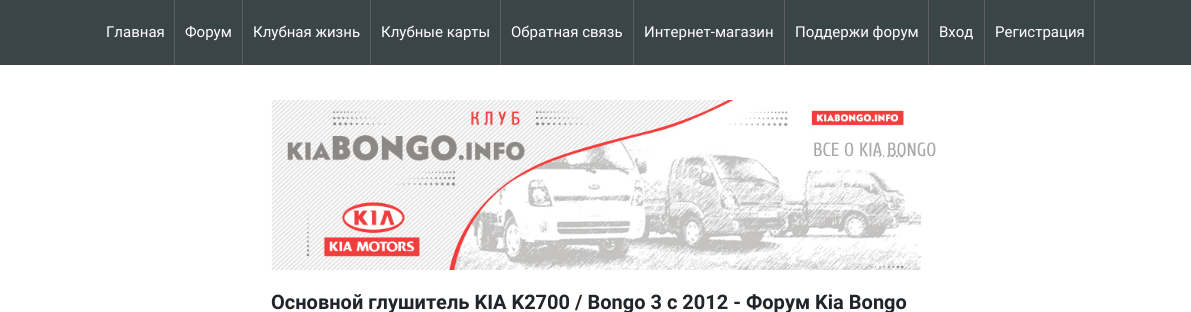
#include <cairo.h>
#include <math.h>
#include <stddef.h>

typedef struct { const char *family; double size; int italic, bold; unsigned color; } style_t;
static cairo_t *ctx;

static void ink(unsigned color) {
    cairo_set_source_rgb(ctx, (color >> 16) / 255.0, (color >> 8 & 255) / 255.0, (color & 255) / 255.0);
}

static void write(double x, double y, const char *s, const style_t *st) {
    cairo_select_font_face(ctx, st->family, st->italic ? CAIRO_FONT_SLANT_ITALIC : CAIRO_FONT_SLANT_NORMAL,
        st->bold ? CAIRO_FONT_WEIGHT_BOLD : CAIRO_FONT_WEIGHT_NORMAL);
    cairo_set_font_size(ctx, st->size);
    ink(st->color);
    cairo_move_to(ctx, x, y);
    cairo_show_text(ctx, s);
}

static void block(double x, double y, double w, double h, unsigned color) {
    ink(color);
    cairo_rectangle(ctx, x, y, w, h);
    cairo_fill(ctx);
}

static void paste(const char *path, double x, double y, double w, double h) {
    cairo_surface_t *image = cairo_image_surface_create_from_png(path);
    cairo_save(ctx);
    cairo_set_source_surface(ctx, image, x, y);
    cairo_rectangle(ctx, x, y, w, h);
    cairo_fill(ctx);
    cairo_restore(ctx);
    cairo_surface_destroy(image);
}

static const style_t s1 = {"Roboto", 15, 0, 0, 0xffffff};
static const style_t s2 = {"Cuprum", 19, 0, 0, 0xaaa8a6};
static const style_t s3 = {"Roboto", 20, 0, 1, 0x212529};

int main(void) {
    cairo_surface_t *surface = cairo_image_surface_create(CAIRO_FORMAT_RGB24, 1191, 312);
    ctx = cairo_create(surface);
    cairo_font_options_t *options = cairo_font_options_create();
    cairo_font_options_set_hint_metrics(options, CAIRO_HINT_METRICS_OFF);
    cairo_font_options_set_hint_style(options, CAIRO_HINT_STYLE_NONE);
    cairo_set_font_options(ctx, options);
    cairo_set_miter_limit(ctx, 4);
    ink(0xffffff);
    cairo_paint(ctx);
    block(0, 0, 1191, 65, 0x3b4449);
    block(174, 0, 1, 65, 0x5d5d5d);
    write(106, 37, "Главная", &s1);
    block(242, 0, 1, 65, 0x5d5d5d);
    write(185, 37, "Форум", &s1);
    block(370, 0, 1, 65, 0x5d5d5d);
    write(253, 37, "Клубная жизнь", &s1);
    block(500, 0, 1, 65, 0x5d5d5d);
    write(381, 37, "Клубные карты", &s1);
    block(633, 0, 1, 65, 0x5d5d5d);
    write(511, 37, "Обратная связь", &s1);
    block(784, 0, 1, 65, 0x5d5d5d);
    write(644, 37, "Интернет-магазин", &s1);
    block(928, 0, 1, 65, 0x5d5d5d);
    write(795, 37, "Поддержи форум", &s1);
    block(984, 0, 1, 65, 0x5d5d5d);
    write(939, 37, "Вход", &s1);
    block(1094, 0, 1, 65, 0x5d5d5d);
    write(995, 37, "Регистрация", &s1);
    paste("pic1.png", 271, 100, 650, 170);
    write(813, 156, "ВСЕ О KIA BONGO", &s2);
    write(271, 309, "Основной глушитель KIA K2700 / Bongo 3 c 2012 - Форум Kia Bongo", &s3);
    cairo_surface_write_to_png(surface, "screenshot.png");
    cairo_font_options_destroy(options);
    cairo_destroy(ctx);
    cairo_surface_destroy(surface);
    return 0;
}
